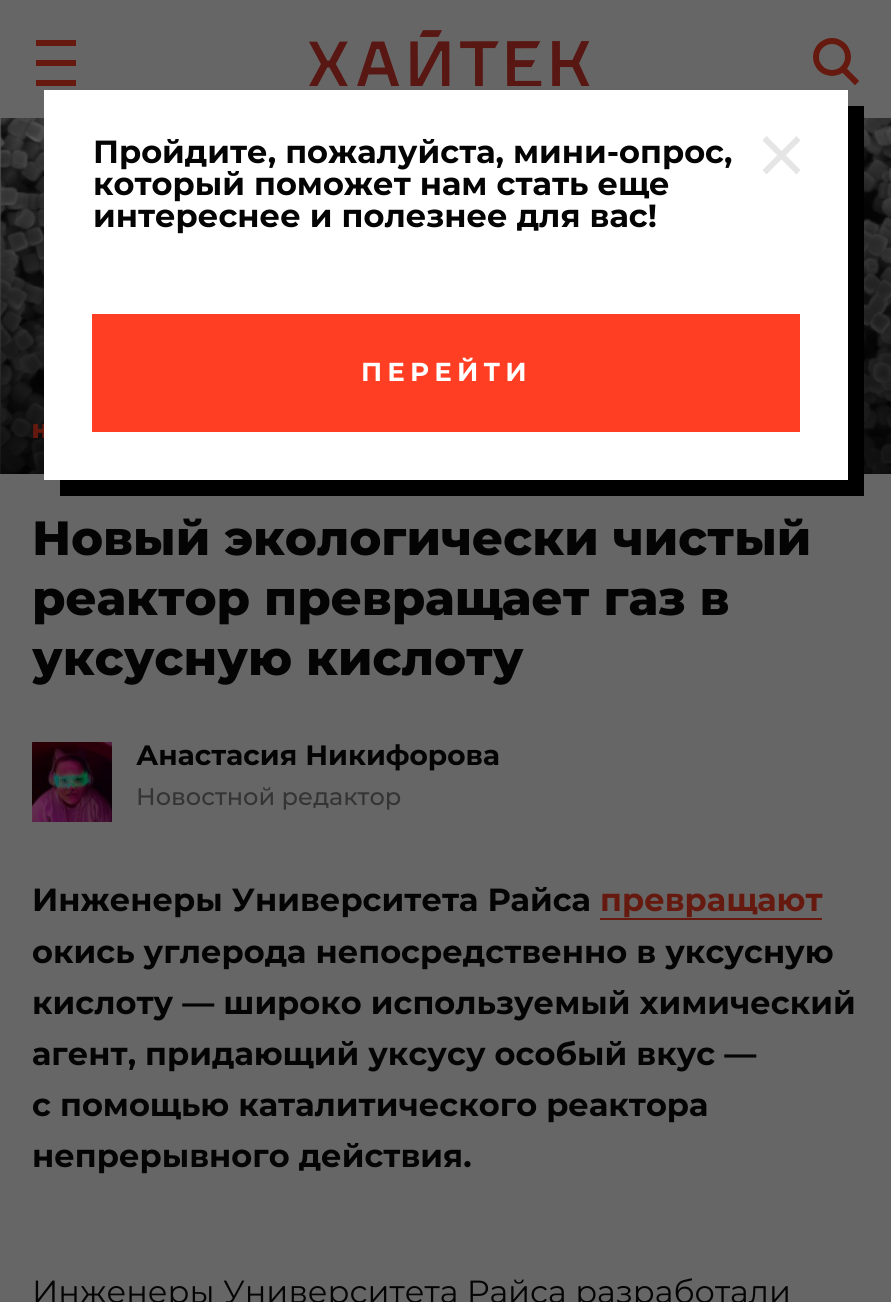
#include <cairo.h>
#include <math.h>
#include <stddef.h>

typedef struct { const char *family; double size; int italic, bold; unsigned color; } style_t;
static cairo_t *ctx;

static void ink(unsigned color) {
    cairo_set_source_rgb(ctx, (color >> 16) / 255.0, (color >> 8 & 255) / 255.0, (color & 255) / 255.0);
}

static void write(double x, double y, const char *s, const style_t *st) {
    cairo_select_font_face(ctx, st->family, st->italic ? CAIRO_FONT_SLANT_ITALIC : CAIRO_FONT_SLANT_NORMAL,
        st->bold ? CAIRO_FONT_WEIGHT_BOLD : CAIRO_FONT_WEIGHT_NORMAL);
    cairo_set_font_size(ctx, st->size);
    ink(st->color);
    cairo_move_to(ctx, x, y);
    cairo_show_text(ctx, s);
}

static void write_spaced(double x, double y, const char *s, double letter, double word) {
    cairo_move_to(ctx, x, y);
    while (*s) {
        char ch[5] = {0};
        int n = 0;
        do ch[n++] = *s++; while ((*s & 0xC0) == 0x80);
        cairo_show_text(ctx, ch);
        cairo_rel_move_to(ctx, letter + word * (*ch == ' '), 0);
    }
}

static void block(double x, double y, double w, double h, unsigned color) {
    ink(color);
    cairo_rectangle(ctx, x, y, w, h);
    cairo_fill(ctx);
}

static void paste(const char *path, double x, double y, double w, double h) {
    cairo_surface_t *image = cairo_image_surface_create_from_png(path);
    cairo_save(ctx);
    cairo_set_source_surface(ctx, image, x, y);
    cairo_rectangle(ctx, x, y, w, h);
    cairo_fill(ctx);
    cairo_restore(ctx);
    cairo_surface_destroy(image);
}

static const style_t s1 = {"Montserrat", 32, 0, 1, 0x040404};
static const style_t s2 = {"Montserrat ExtraBold", 48, 0, 0, 0x040404};
static const style_t s3 = {"Montserrat", 28, 0, 1, 0x040404};
static const style_t s4 = {"Montserrat Medium", 24, 0, 0, 0x343434};
static const style_t s5 = {"Montserrat", 32, 0, 1, 0x66190e};
static const style_t s6 = {"Montserrat", 32, 0, 0, 0x040404};

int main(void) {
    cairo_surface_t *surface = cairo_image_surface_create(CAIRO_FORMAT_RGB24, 891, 1302);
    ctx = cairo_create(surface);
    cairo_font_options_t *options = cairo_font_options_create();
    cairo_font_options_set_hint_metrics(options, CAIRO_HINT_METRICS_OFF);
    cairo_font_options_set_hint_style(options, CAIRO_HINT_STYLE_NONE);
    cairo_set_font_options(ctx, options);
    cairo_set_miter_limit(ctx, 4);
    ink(0x666666);
    cairo_paint(ctx);
    block(36, 60, 40, 6, 0x66190e);
    block(36, 40, 40, 6, 0x66190e);
    block(36, 80, 40, 6, 0x66190e);
    paste("pic1.png", 309, 30, 281, 56);
    paste("pic2.png", 813, 38, 46, 48);
    paste("pic3.png", 0, 118, 891, 356);
    ink(0x000000);
    cairo_new_path(ctx);
    cairo_move_to(ctx, 60, 480);
    cairo_line_to(ctx, 60, 496);
    cairo_line_to(ctx, 864, 496);
    cairo_line_to(ctx, 864, 106);
    cairo_line_to(ctx, 848, 106);
    cairo_line_to(ctx, 848, 480);
    cairo_close_path(ctx);
    cairo_fill(ctx);
    cairo_select_font_face(ctx, "Montserrat Black", CAIRO_FONT_SLANT_NORMAL, CAIRO_FONT_WEIGHT_NORMAL);
    cairo_set_font_size(ctx, 20);
    ink(0x66190e);
    write_spaced(32, 438, "Н", 4, 0);
    block(44, 90, 804, 390, 0xffffff);
    write(93, 163, "Пройдите, пожалуйста, мини-опрос,", &s1);
    write(93, 195, "который поможет нам стать еще", &s1);
    write(93, 227, "интереснее и полезнее для вас!", &s1);
    ink(0xe5e5e5);
    cairo_new_path(ctx);
    cairo_move_to(ctx, 796.5, 136);
    cairo_line_to(ctx, 800.5, 140.5);
    cairo_line_to(ctx, 766.5, 174.5);
    cairo_line_to(ctx, 762.5, 170);
    cairo_close_path(ctx);
    cairo_fill(ctx);
    cairo_new_path(ctx);
    cairo_move_to(ctx, 762.5, 140.5);
    cairo_line_to(ctx, 766.5, 136);
    cairo_line_to(ctx, 800.5, 170);
    cairo_line_to(ctx, 796.5, 174.5);
    cairo_close_path(ctx);
    cairo_fill(ctx);
    block(92, 314, 708, 118, 0xff3e24);
    cairo_set_font_size(ctx, 26);
    ink(0xffffff);
    write_spaced(361, 381, "ПЕРЕЙТИ", 5.25, 0);
    write(32, 555, "Новый экологически чистый", &s2);
    write(32, 615, "реактор превращает газ в", &s2);
    write(32, 675, "уксусную кислоту", &s2);
    paste("pic4.png", 32, 742, 80, 80);
    write(136, 765, "Анастасия Никифорова", &s3);
    write(136, 805, "Новостной редактор", &s4);
    write(32, 911, "Инженеры Университета Райса", &s1);
    write(600, 911, "превращают", &s5);
    block(600, 918, 222, 2, 0x66190e);
    write(32, 963, "окись углерода непосредственно в уксусную", &s1);
    write(32, 1014, "кислоту — широко используемый химический", &s1);
    write(32, 1065, "агент, придающий уксусу особый вкус —", &s1);
    write(32, 1116, "с помощью каталитического реактора", &s1);
    write(32, 1167, "непрерывного действия.", &s1);
    write(32, 1303, "Инженеры Университета Райса разработали", &s6);
    cairo_surface_write_to_png(surface, "screenshot.png");
    cairo_font_options_destroy(options);
    cairo_destroy(ctx);
    cairo_surface_destroy(surface);
    return 0;
}
